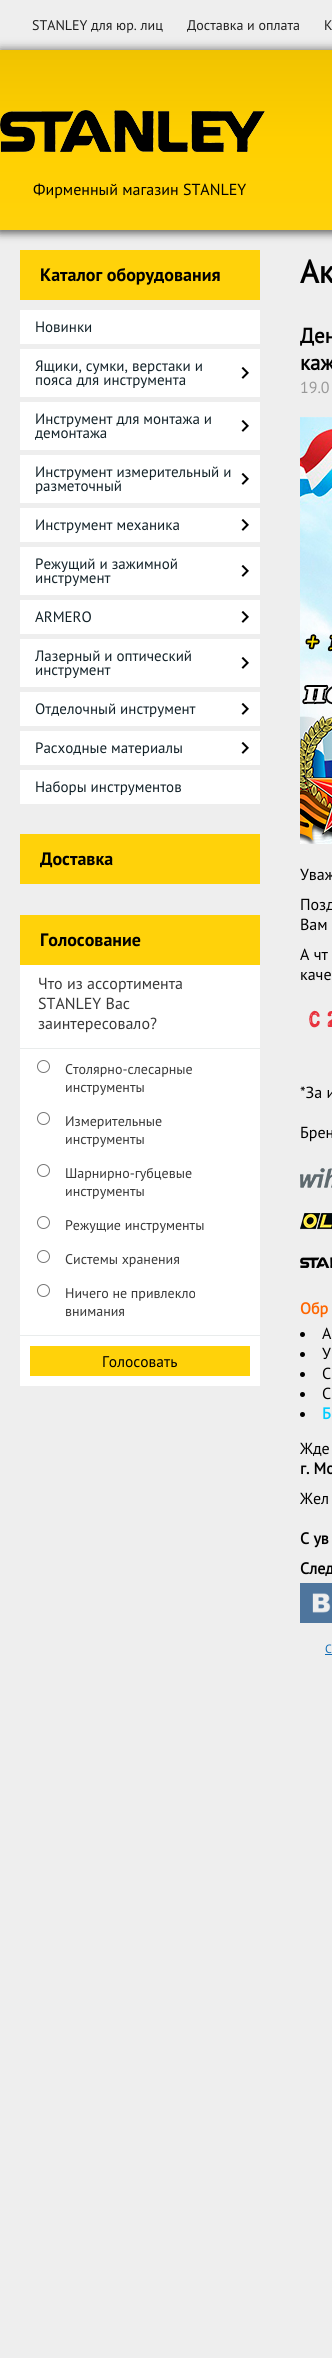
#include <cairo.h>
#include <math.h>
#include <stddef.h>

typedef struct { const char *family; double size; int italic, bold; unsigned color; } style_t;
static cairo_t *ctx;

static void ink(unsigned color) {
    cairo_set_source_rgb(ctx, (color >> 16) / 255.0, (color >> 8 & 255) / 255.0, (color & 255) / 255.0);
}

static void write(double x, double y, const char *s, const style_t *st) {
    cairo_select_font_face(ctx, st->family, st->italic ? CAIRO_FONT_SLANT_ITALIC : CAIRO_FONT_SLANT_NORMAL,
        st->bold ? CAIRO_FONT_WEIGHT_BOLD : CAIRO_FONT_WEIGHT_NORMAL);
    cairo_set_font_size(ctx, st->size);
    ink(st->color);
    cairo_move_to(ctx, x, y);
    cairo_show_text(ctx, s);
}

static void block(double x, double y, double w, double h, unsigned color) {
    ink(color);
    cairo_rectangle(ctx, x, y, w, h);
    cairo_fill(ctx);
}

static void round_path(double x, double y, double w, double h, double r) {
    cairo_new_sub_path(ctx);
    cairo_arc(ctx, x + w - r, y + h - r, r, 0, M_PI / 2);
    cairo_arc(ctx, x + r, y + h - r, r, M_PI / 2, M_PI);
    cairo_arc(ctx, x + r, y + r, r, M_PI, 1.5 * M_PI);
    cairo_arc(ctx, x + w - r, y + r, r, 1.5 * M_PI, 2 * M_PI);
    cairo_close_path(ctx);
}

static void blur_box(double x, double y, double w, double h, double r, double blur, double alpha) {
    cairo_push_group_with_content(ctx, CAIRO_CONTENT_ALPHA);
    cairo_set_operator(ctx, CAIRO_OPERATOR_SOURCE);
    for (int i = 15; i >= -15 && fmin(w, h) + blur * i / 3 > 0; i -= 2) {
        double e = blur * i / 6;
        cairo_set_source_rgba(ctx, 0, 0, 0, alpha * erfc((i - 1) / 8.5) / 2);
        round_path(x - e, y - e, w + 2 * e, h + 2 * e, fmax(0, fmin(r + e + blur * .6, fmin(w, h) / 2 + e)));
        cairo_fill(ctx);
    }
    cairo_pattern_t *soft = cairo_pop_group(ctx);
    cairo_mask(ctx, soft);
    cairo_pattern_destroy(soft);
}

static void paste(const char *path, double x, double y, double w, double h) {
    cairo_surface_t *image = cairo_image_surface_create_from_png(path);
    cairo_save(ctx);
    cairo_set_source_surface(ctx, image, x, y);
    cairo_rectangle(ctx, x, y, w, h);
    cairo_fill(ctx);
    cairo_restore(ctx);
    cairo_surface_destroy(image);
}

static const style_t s1 = {"PT Sans", 14, 0, 0, 0x212121};
static const style_t s2 = {"PT Sans", 16, 0, 0, 0x000000};
static const style_t s3 = {"PT Sans", 18, 0, 1, 0x000000};
static const style_t s4 = {"PT Sans", 15, 0, 0, 0x132229};
static const style_t s5 = {"PT Sans", 16, 0, 0, 0x383838};
static const style_t s6 = {"PT Sans", 14, 0, 0, 0x383838};
static const style_t s7 = {"PT Sans", 15.5, 0, 0, 0x000000};
static const style_t s8 = {"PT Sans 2", 32, 0, 1, 0x000000};
static const style_t s9 = {"PT Sans 2", 21, 0, 1, 0x000000};
static const style_t s10 = {"PT Sans", 16, 0, 0, 0x999999};
static const style_t s11 = {"PT Sans 2", 16, 0, 1, 0xff6600};
static const style_t s12 = {"PT Sans 2", 16, 0, 1, 0x00ccff};
static const style_t s13 = {"PT Sans 2", 16, 0, 1, 0x000000};
static const style_t s14 = {"PT Sans", 12, 0, 0, 0x106cb5};

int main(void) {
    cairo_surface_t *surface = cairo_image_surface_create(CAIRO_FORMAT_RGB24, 332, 2358);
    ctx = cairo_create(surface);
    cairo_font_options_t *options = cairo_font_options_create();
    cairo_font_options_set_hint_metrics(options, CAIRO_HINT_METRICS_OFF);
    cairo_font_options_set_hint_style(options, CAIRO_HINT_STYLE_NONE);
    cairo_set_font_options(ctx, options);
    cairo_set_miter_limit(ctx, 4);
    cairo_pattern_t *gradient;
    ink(0xeeeeee);
    cairo_paint(ctx);
    ink(0x666666);
    blur_box(-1, -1, 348, 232, 0, 5, 1);
    block(0, 0, 332, 50, 0xeeeeee);
    write(32, 30, "STANLEY для юр. лиц", &s1);
    write(187, 30, "Доставка и оплата", &s1);
    write(324, 30, "К", &s1);
    ink(0x666666);
    blur_box(0, 50, 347, 180, 0, 5, 1);
    gradient = cairo_pattern_create_linear(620, 50, 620, 230);
    cairo_pattern_add_color_stop_rgba(gradient, 0, 0.941, 0.765, 0, 1);
    cairo_pattern_add_color_stop_rgba(gradient, 0.5, 1, 0.816, 0, 1);
    cairo_pattern_add_color_stop_rgba(gradient, 1, 1, 0.824, 0.039, 1);
    cairo_set_source(ctx, gradient);
    cairo_pattern_destroy(gradient);
    cairo_rectangle(ctx, 0, 50, 332, 180);
    cairo_fill(ctx);
    paste("pic1.png", 0, 110, 265, 42);
    write(33, 195, "Фирменный магазин STANLEY", &s2);
    block(20, 250, 240, 50, 0xffd20a);
    write(40, 281, "Каталог оборудования", &s3);
    block(20, 310, 240, 34, 0xffffff);
    write(35, 332, "Новинки", &s4);
    block(20, 349, 240, 48, 0xffffff);
    write(35, 371, "Ящики, сумки, верстаки и", &s4);
    write(35, 385, "пояса для инструмента", &s4);
    paste("pic2.png", 241, 367, 8, 12);
    block(20, 402, 240, 48, 0xffffff);
    write(35, 424, "Инструмент для монтажа и", &s4);
    write(35, 438, "демонтажа", &s4);
    paste("pic2.png", 241, 420, 8, 12);
    block(20, 455, 240, 48, 0xffffff);
    write(35, 477, "Инструмент измерительный и", &s4);
    write(35, 491, "разметочный", &s4);
    paste("pic2.png", 241, 473, 8, 12);
    block(20, 508, 240, 34, 0xffffff);
    write(35, 530, "Инструмент механика", &s4);
    paste("pic2.png", 241, 519, 8, 12);
    block(20, 547, 240, 48, 0xffffff);
    write(35, 569, "Режущий и зажимной", &s4);
    write(35, 583, "инструмент", &s4);
    paste("pic2.png", 241, 565, 8, 12);
    block(20, 600, 240, 34, 0xffffff);
    write(35, 622, "ARMERO", &s4);
    paste("pic2.png", 241, 611, 8, 12);
    block(20, 639, 240, 48, 0xffffff);
    write(35, 661, "Лазерный и оптический", &s4);
    write(35, 675, "инструмент", &s4);
    paste("pic2.png", 241, 657, 8, 12);
    block(20, 692, 240, 34, 0xffffff);
    write(35, 714, "Отделочный инструмент", &s4);
    paste("pic2.png", 241, 703, 8, 12);
    block(20, 731, 240, 34, 0xffffff);
    write(35, 753, "Расходные материалы", &s4);
    paste("pic2.png", 241, 742, 8, 12);
    block(20, 770, 240, 34, 0xffffff);
    write(35, 792, "Наборы инструментов", &s4);
    block(20, 834, 240, 50, 0xffd20a);
    write(40, 865, "Доставка", &s3);
    block(20, 915, 240, 50, 0xffd20a);
    write(40, 946, "Голосование", &s3);
    block(20, 965, 240, 421, 0xffffff);
    block(20, 1048, 240, 1, 0xe9ecec);
    write(38, 989, "Что из ассортимента", &s5);
    write(38, 1009, "STANLEY Вас", &s5);
    write(38, 1029, "заинтересовало?", &s5);
    cairo_new_path(ctx);
    cairo_arc(ctx, 43.5, 1066.5, 6, 0, 2 * M_PI);
    ink(0x767676);
    cairo_set_line_width(ctx, 1);
    cairo_stroke(ctx);
    write(65, 1074, "Столярно-слесарные", &s6);
    write(65, 1092, "инструменты", &s6);
    cairo_new_path(ctx);
    cairo_arc(ctx, 43.5, 1118.5, 6, 0, 2 * M_PI);
    ink(0x767676);
    cairo_stroke(ctx);
    write(65, 1126, "Измерительные", &s6);
    write(65, 1144, "инструменты", &s6);
    cairo_new_path(ctx);
    cairo_arc(ctx, 43.5, 1170.5, 6, 0, 2 * M_PI);
    ink(0x767676);
    cairo_stroke(ctx);
    write(65, 1178, "Шарнирно-губцевые", &s6);
    write(65, 1196, "инструменты", &s6);
    cairo_new_path(ctx);
    cairo_arc(ctx, 43.5, 1222.5, 6, 0, 2 * M_PI);
    ink(0x767676);
    cairo_stroke(ctx);
    write(65, 1230, "Режущие инструменты", &s6);
    cairo_new_path(ctx);
    cairo_arc(ctx, 43.5, 1256.5, 6, 0, 2 * M_PI);
    ink(0x767676);
    cairo_stroke(ctx);
    write(65, 1264, "Системы хранения", &s6);
    cairo_new_path(ctx);
    cairo_arc(ctx, 43.5, 1290.5, 6, 0, 2 * M_PI);
    ink(0x767676);
    cairo_stroke(ctx);
    write(65, 1298, "Ничего не привлекло", &s6);
    write(65, 1316, "внимания", &s6);
    block(20, 1335, 240, 1, 0xe9ecec);
    block(30, 1346, 220, 30, 0xffd20a);
    write(102, 1367, "Голосовать", &s7);
    write(300, 283, "Ак", &s8);
    write(300, 343, "Ден", &s9);
    write(300, 370, "каж", &s9);
    write(300, 393, "19.0", &s10);
    paste("pic3.png", 300, 417, 32, 427);
    write(300, 880, "Уваж", &s2);
    write(300, 910, "Позд", &s2);
    write(300, 930, "Вам", &s2);
    write(300, 960, "А чт", &s2);
    write(300, 980, "каче", &s2);
    paste("pic4.png", 309, 1010, 23, 18);
    write(300, 1098, "*За и", &s2);
    write(300, 1138, "Брен", &s2);
    paste("pic5.png", 300, 1168, 32, 20);
    paste("pic6.png", 300, 1213, 32, 17);
    paste("pic7.png", 300, 1257, 32, 11);
    write(300, 1314, "Обр", &s11);
    ink(0x000000);
    cairo_new_path(ctx);
    cairo_arc(ctx, 302.5, 1334.5, 2.5, 0, 2 * M_PI);
    cairo_fill(ctx);
    write(322, 1339, "А", &s2);
    cairo_new_path(ctx);
    cairo_arc(ctx, 302.5, 1354.5, 2.5, 0, 2 * M_PI);
    cairo_fill(ctx);
    write(322, 1359, "У", &s2);
    cairo_new_path(ctx);
    cairo_arc(ctx, 302.5, 1374.5, 2.5, 0, 2 * M_PI);
    cairo_fill(ctx);
    write(322, 1379, "С", &s2);
    cairo_new_path(ctx);
    cairo_arc(ctx, 302.5, 1394.5, 2.5, 0, 2 * M_PI);
    cairo_fill(ctx);
    write(322, 1399, "С", &s2);
    cairo_new_path(ctx);
    cairo_arc(ctx, 302.5, 1414.5, 2.5, 0, 2 * M_PI);
    cairo_fill(ctx);
    write(322, 1419, "Б", &s12);
    write(300, 1454, "Жде", &s2);
    write(300, 1474, "г. Мо", &s13);
    write(300, 1504, "Жел", &s2);
    write(300, 1544, "С ув", &s13);
    write(300, 1574, "След", &s13);
    paste("pic8.png", 300, 1583, 32, 40);
    write(325, 1653, "С", &s14);
    block(325, 1654, 7, 1, 0x106cb5);
    cairo_surface_write_to_png(surface, "screenshot.png");
    cairo_font_options_destroy(options);
    cairo_destroy(ctx);
    cairo_surface_destroy(surface);
    return 0;
}
